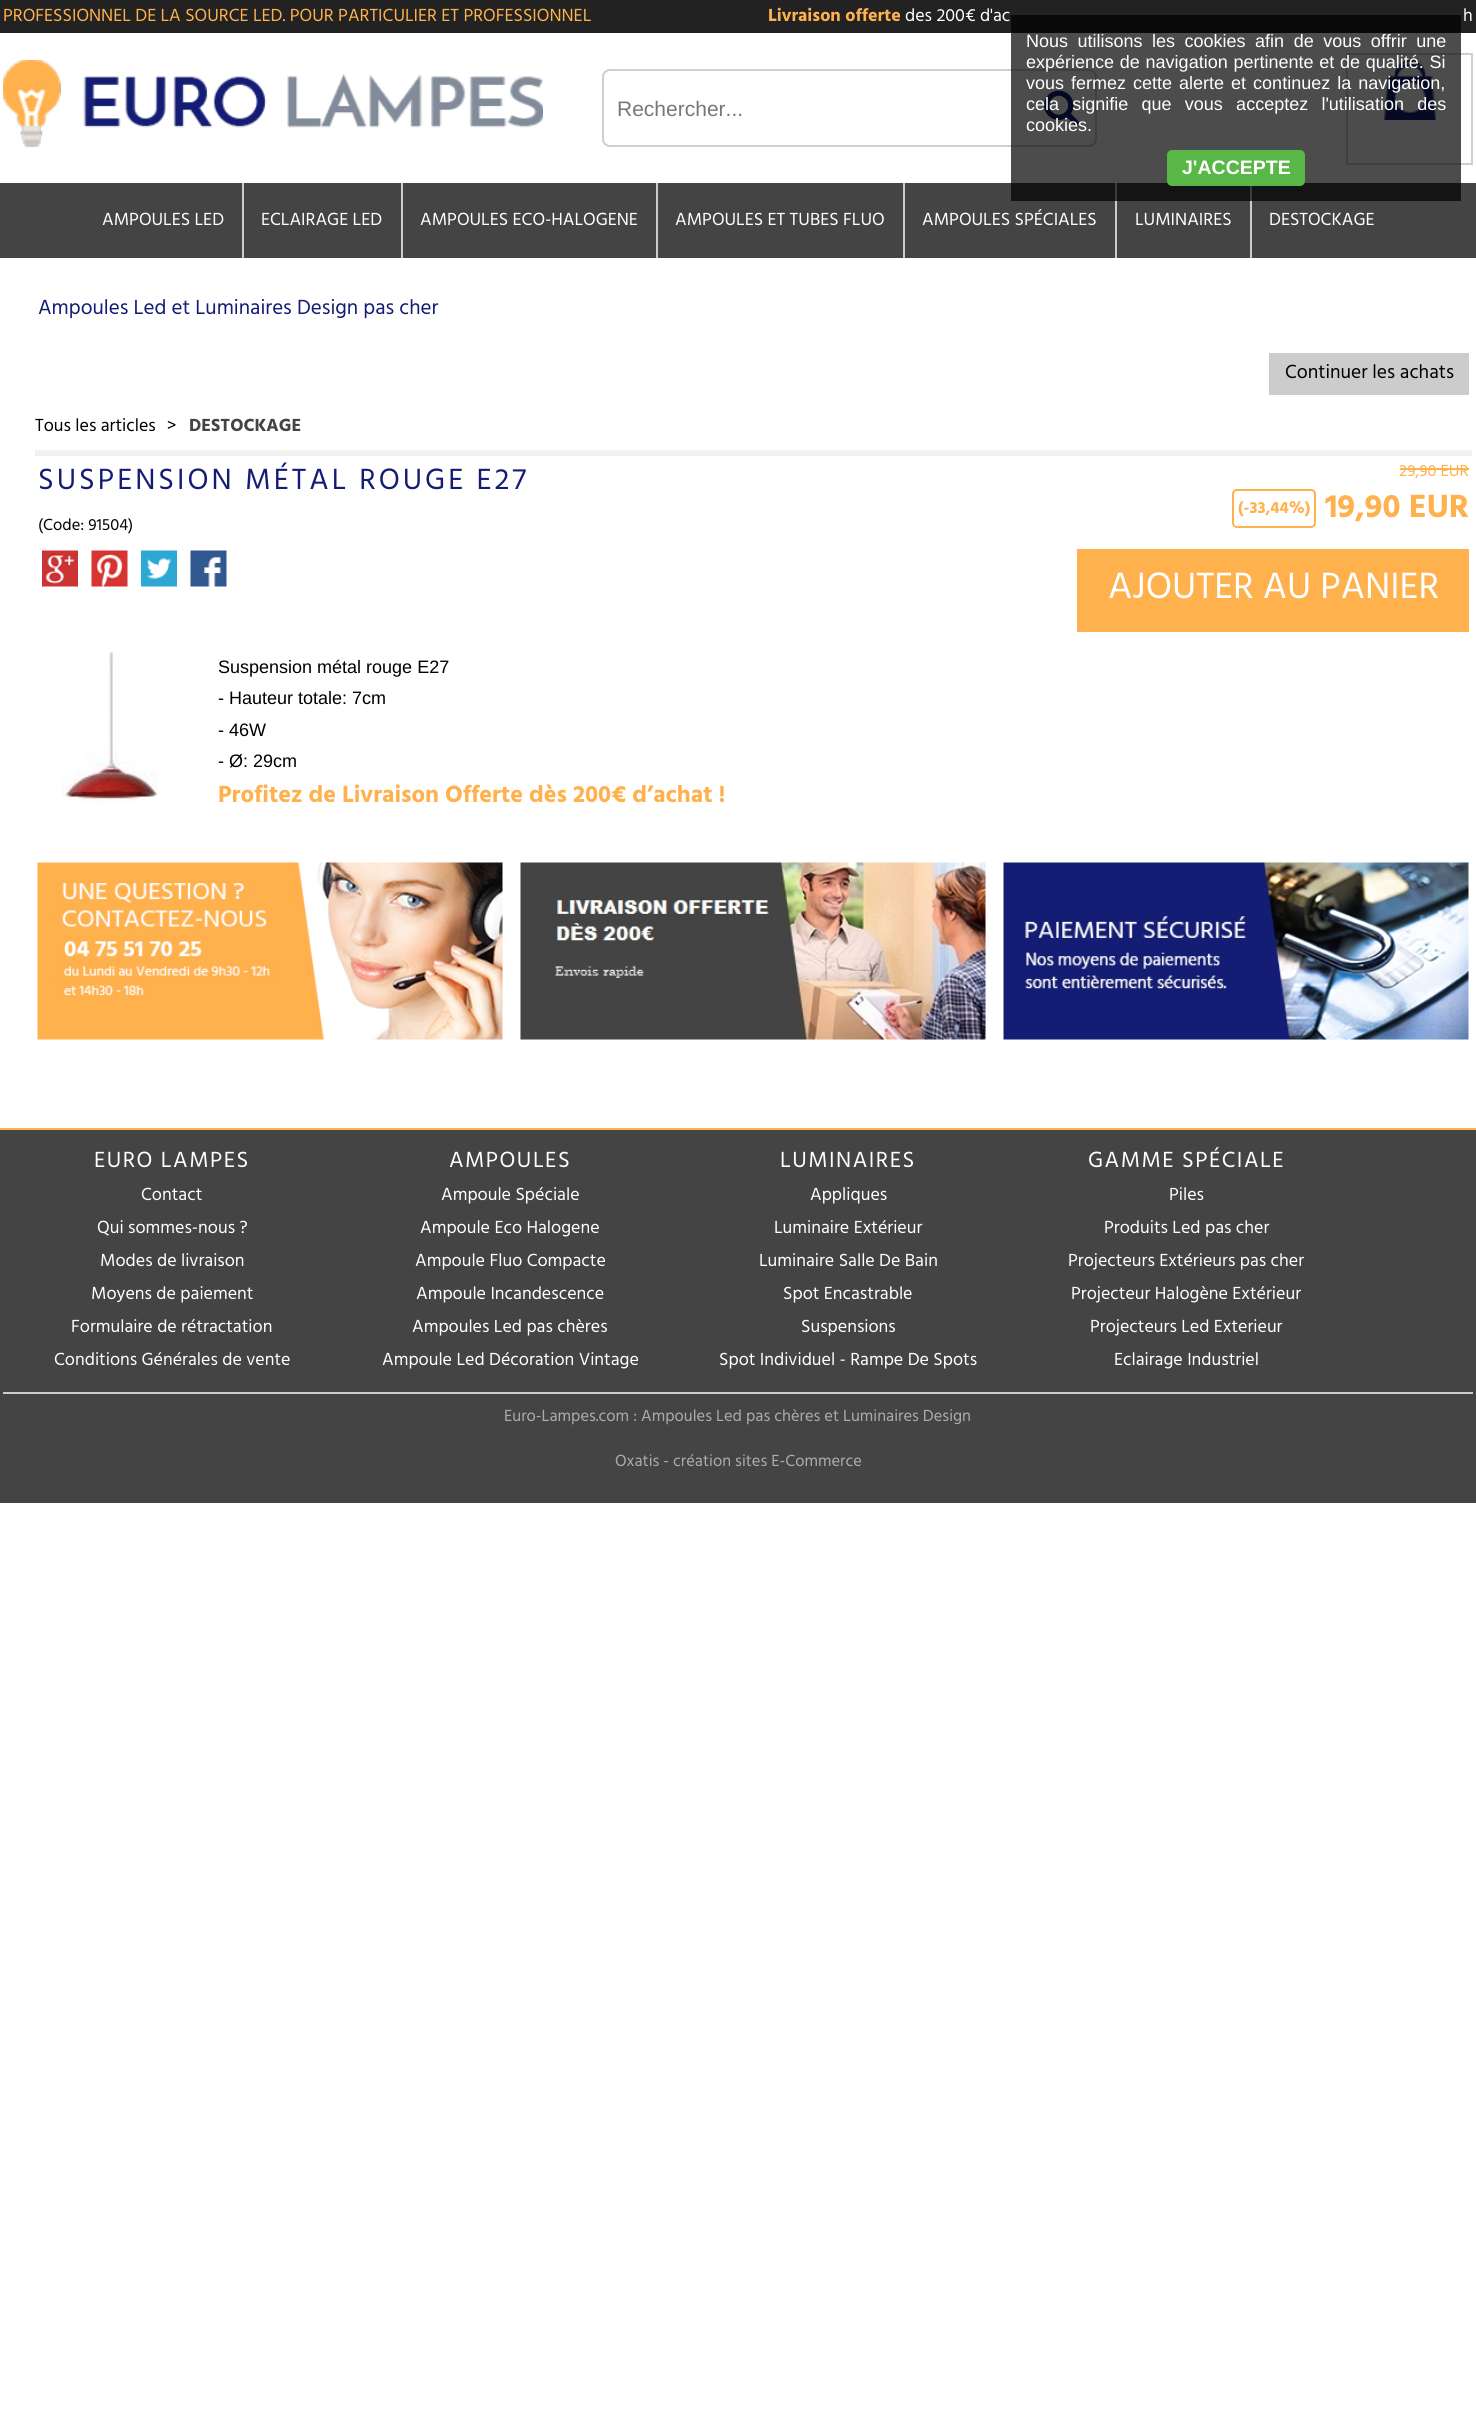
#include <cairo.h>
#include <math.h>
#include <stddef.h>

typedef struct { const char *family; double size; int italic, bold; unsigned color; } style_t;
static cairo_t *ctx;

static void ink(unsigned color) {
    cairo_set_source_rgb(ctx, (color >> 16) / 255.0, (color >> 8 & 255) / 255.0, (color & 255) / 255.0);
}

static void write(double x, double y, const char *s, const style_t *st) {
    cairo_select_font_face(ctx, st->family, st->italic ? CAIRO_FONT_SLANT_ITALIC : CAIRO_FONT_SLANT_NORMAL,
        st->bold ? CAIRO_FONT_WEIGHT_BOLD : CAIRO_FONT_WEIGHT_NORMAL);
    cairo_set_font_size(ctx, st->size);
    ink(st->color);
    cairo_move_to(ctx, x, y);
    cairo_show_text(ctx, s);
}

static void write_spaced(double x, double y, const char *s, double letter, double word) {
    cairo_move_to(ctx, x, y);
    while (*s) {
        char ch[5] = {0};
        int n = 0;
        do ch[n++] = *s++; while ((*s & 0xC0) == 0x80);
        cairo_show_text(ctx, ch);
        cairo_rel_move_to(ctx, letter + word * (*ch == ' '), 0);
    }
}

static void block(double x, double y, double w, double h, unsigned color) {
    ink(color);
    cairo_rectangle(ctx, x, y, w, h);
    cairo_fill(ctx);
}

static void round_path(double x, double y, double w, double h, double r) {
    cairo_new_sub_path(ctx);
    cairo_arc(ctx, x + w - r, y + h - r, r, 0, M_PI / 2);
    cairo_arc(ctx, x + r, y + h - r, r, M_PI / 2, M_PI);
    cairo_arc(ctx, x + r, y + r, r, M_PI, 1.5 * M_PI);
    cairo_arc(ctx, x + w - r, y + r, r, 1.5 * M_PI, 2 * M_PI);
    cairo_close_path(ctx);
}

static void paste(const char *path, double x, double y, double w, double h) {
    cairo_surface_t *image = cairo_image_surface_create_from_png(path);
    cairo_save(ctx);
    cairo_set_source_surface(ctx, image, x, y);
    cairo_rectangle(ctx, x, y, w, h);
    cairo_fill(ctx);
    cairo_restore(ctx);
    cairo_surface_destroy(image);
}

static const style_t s1 = {"Hind", 18, 0, 0, 0xffb14d};
static const style_t s2 = {"Hind", 18, 0, 1, 0xffb14d};
static const style_t s3 = {"Hind", 18, 0, 0, 0xffffff};
static const style_t s4 = {"Liberation Sans", 21, 0, 0, 0x777777};
static const style_t s5 = {"Hind", 21, 0, 0, 0x141d74};
static const style_t s6 = {"Hind", 19.5, 0, 0, 0x000000};
static const style_t s7 = {"Hind", 18, 0, 0, 0x000000};
static const style_t s8 = {"Hind", 18, 0, 1, 0x444444};
static const style_t s9 = {"Hind", 16.5, 0, 0, 0x000000};
static const style_t s10 = {"Hind", 16.5, 0, 0, 0xffb14d};
static const style_t s11 = {"Hind", 16.5, 0, 1, 0xffb14d};
static const style_t s12 = {"Hind", 33, 0, 1, 0xffb14d};
static const style_t s13 = {"Hind", 37.5, 0, 0, 0xffffff};
static const style_t s14 = {"Liberation Sans", 18, 0, 0, 0x000000};
static const style_t s15 = {"Hind", 24, 0, 1, 0xffb14d};
static const style_t s16 = {"Hind", 16.5, 0, 0, 0xacacac};
static const style_t s17 = {"Liberation Sans", 18, 0, 0, 0xffffff};
static const style_t s18 = {"Liberation Sans", 19.5, 0, 1, 0xffffff};

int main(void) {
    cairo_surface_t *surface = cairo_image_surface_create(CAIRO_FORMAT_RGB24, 1476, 2436);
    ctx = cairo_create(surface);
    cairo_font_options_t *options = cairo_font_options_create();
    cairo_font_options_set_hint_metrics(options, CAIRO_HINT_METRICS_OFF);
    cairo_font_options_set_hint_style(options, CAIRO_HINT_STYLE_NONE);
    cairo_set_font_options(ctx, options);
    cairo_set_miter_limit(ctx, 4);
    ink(0xffffff);
    cairo_paint(ctx);
    block(0, 183, 1476, 75, 0x444444);
    block(0, 0, 1476, 33, 0x222222);
    write(3, 21, "PROFESSIONNEL DE LA SOURCE LED. POUR PARTICULIER ET PROFESSIONNEL", &s1);
    write(768, 21, "Livraison offerte", &s2);
    write(905, 21, "des 200€ d'ac", &s3);
    write(1463, 21, "h", &s3);
    paste("pic1.png", 3, 60, 540, 87);
    round_path(603, 70, 493, 76, 7);
    ink(0xcecfcf);
    cairo_stroke(ctx);
    write(617, 116, "Rechercher...", &s4);
    paste("pic2.png", 1044, 90, 35, 36);
    cairo_rectangle(ctx, 1347, 54, 125, 110);
    ink(0xcecfcf);
    cairo_stroke(ctx);
    paste("pic3.png", 1384, 60, 52, 60);
    write(102, 225, "AMPOULES LED", &s3);
    block(242, 183, 2, 75, 0xcccccc);
    write(261, 225, "ECLAIRAGE LED", &s3);
    block(401, 183, 2, 75, 0xcccccc);
    write(420, 225, "AMPOULES ECO-HALOGENE", &s3);
    block(656, 183, 2, 75, 0xcccccc);
    write(675, 225, "AMPOULES ET TUBES FLUO", &s3);
    block(903, 183, 2, 75, 0xcccccc);
    write(922, 225, "AMPOULES SPÉCIALES", &s3);
    block(1115, 183, 2, 75, 0xcccccc);
    write(1135, 225, "LUMINAIRES", &s3);
    block(1250, 183, 2, 75, 0xcccccc);
    write(1269, 225, "DESTOCKAGE", &s3);
    write(38, 314, "Ampoules Led et Luminaires Design pas cher", &s5);
    block(1269, 353, 200, 42, 0xcccccc);
    write(1285, 378, "Continuer les achats", &s6);
    write(35, 431, "Tous les articles", &s7);
    write(167, 431, ">", &s7);
    write(189, 431, "DESTOCKAGE", &s8);
    block(35, 450, 1437, 6, 0xf1f1f1);
    cairo_select_font_face(ctx, "Hind", CAIRO_FONT_SLANT_NORMAL, CAIRO_FONT_WEIGHT_NORMAL);
    cairo_set_font_size(ctx, 30);
    ink(0x141d74);
    write_spaced(38, 489, "SUSPENSION MÉTAL ROUGE E27", 3, 0);
    write(38, 530, "(Code: 91504)", &s9);
    paste("pic4.png", 42, 550, 36, 37);
    paste("pic5.png", 91, 550, 37, 37);
    paste("pic6.png", 141, 550, 36, 37);
    paste("pic7.png", 190, 550, 37, 37);
    write(1399, 476, "29,90 EUR", &s10);
    block(1400, 468, 69, 2, 0xffb14d);
    round_path(1233, 490, 82, 37, 4);
    cairo_stroke(ctx);
    write(1238, 513, "(-33,44%)", &s11);
    write(1325, 517, "19,90 EUR", &s12);
    block(1077, 549, 392, 83, 0xffb14d);
    write(1108, 598, "AJOUTER AU PANIER", &s13);
    paste("pic8.png", 61, 652, 97, 151);
    write(218, 673, "Suspension métal rouge E27", &s14);
    write(218, 704, "- Hauteur totale: 7cm", &s14);
    write(218, 736, "- 46W", &s14);
    write(218, 767, "- Ø: 29cm", &s14);
    write(218, 802, "Profitez de Livraison Offerte dès 200€ d’achat !", &s15);
    paste("pic9.png", 37, 862, 466, 178);
    paste("pic10.png", 520, 862, 466, 178);
    paste("pic11.png", 1003, 862, 466, 178);
    block(0, 1130, 1476, 373, 0x444444);
    block(0, 1128, 1476, 2, 0xffb14d);
    block(3, 1392, 1470, 2, 0xcccccc);
    cairo_select_font_face(ctx, "Hind", CAIRO_FONT_SLANT_NORMAL, CAIRO_FONT_WEIGHT_NORMAL);
    cairo_set_font_size(ctx, 22.5);
    ink(0xffffff);
    write_spaced(94, 1167, "EURO LAMPES", 1.5, 0);
    write_spaced(449, 1167, "AMPOULES", 1.5, 0);
    write_spaced(780, 1167, "LUMINAIRES", 1.5, 0);
    write_spaced(1088, 1167, "GAMME SPÉCIALE", 1.5, 0);
    write(141, 1200, "Contact", &s3);
    write(441, 1200, "Ampoule Spéciale", &s3);
    write(810, 1200, "Appliques", &s3);
    write(1169, 1200, "Piles", &s3);
    write(97, 1233, "Qui sommes-nous ?", &s3);
    write(420, 1233, "Ampoule Eco Halogene", &s3);
    write(774, 1233, "Luminaire Extérieur", &s3);
    write(1104, 1233, "Produits Led pas cher", &s3);
    write(100, 1266, "Modes de livraison", &s3);
    write(415, 1266, "Ampoule Fluo Compacte", &s3);
    write(759, 1266, "Luminaire Salle De Bain", &s3);
    write(1068, 1266, "Projecteurs Extérieurs pas cher", &s3);
    write(91, 1299, "Moyens de paiement", &s3);
    write(416, 1299, "Ampoule Incandescence", &s3);
    write(783, 1299, "Spot Encastrable", &s3);
    write(1071, 1299, "Projecteur Halogène Extérieur", &s3);
    write(71, 1332, "Formulaire de rétractation", &s3);
    write(412, 1332, "Ampoules Led pas chères", &s3);
    write(801, 1332, "Suspensions", &s3);
    write(1090, 1332, "Projecteurs Led Exterieur", &s3);
    write(54, 1365, "Conditions Générales de vente", &s3);
    write(382, 1365, "Ampoule Led Décoration Vintage", &s3);
    write(719, 1365, "Spot Individuel - Rampe De Spots", &s3);
    write(1114, 1365, "Eclairage Industriel", &s3);
    write(504, 1421, "Euro-Lampes.com : Ampoules Led pas chères et Luminaires Design", &s16);
    write(615, 1466, "Oxatis - création sites E-Commerce", &s16);
    cairo_set_source_rgba(ctx, 0, 0, 0, 0.7);
    cairo_rectangle(ctx, 1011, 15, 450, 186);
    cairo_fill(ctx);
    cairo_select_font_face(ctx, "Liberation Sans", CAIRO_FONT_SLANT_NORMAL, CAIRO_FONT_WEIGHT_NORMAL);
    cairo_set_font_size(ctx, 18);
    ink(0xffffff);
    write_spaced(1026, 47, "Nous utilisons les cookies afin de vous offrir une", 0, 4.5);
    write_spaced(1026, 68, "expérience de navigation pertinente et de qualité. Si", 0, 0.75);
    write_spaced(1026, 89, "vous fermez cette alerte et continuez la navigation,", 0, 2);
    write_spaced(1026, 110, "cela signifie que vous acceptez l'utilisation des", 0, 8.25);
    write(1026, 131, "cookies.", &s17);
    ink(0x58b747);
    round_path(1167, 150, 138, 36, 5);
    cairo_fill(ctx);
    write(1182, 174, "J'ACCEPTE", &s18);
    cairo_surface_write_to_png(surface, "screenshot.png");
    cairo_font_options_destroy(options);
    cairo_destroy(ctx);
    cairo_surface_destroy(surface);
    return 0;
}
